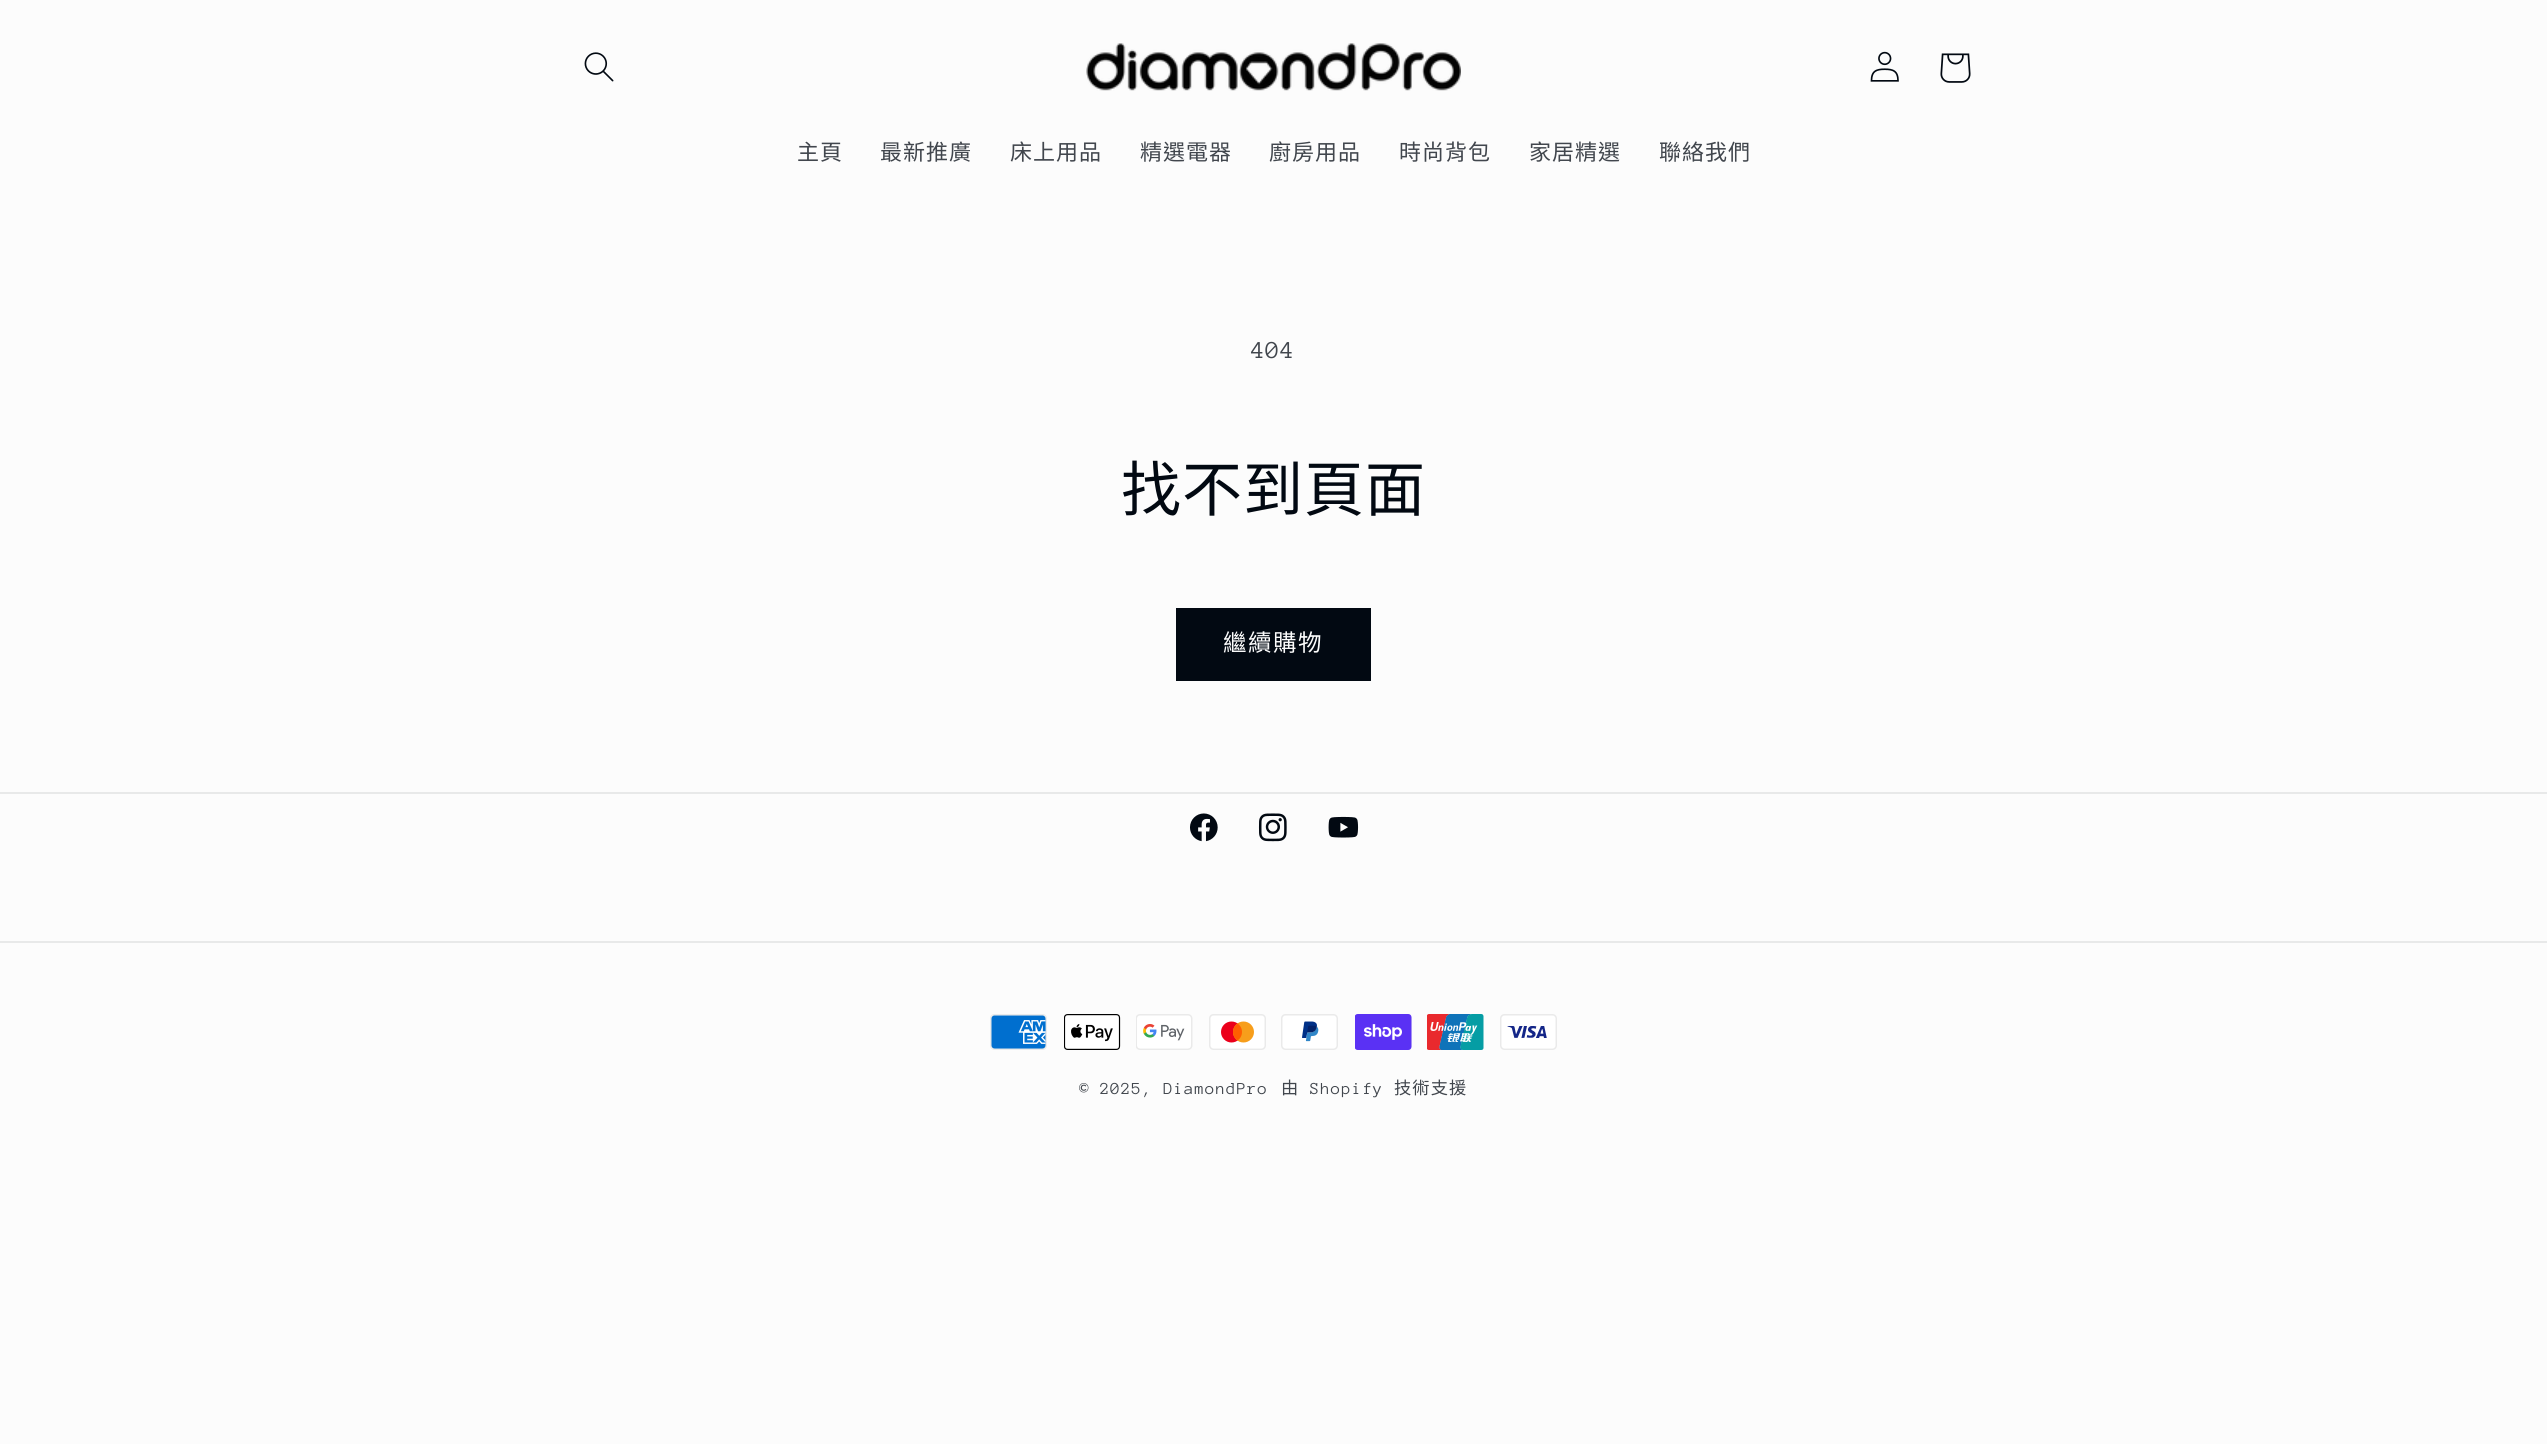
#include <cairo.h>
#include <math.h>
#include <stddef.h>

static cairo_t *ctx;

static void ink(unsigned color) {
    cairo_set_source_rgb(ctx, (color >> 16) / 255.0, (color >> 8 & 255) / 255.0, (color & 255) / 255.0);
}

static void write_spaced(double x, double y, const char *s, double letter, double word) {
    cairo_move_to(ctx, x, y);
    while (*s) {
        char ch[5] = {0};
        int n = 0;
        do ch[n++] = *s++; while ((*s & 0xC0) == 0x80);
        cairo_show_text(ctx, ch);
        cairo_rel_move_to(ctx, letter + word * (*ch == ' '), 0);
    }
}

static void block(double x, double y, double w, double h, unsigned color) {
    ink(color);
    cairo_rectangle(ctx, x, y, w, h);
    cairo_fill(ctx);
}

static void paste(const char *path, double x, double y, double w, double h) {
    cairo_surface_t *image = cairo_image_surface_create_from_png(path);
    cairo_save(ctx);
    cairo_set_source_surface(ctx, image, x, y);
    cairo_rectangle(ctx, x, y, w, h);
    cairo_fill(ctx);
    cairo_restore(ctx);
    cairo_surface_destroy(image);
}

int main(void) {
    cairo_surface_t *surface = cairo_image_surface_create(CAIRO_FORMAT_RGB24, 2547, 1444);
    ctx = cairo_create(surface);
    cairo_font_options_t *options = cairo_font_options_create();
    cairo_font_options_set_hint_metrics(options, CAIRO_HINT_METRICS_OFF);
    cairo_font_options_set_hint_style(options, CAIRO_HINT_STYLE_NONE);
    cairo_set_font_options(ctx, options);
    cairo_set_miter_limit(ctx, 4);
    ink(0xfcfcfc);
    cairo_paint(ctx);
    paste("pic1.png", 584, 52, 30, 30);
    paste("pic2.png", 1086, 43, 375, 48);
    paste("pic3.png", 1870, 51, 29, 31);
    paste("pic4.png", 1940, 53, 31, 30);
    cairo_select_font_face(ctx, "Noto Sans CJK TC", CAIRO_FONT_SLANT_NORMAL, CAIRO_FONT_WEIGHT_NORMAL);
    cairo_set_font_size(ctx, 22);
    ink(0x41464d);
    write_spaced(797, 160, "主頁", 1, 0);
    write_spaced(880, 160, "最新推廣", 1, 0);
    write_spaced(1010, 160, "床上用品", 1, 0);
    write_spaced(1140, 160, "精選電器", 1, 0);
    write_spaced(1269, 160, "廚房用品", 1, 0);
    write_spaced(1399, 160, "時尚背包", 1, 0);
    write_spaced(1529, 160, "家居精選", 1, 0);
    write_spaced(1659, 160, "聯絡我們", 1, 0);
    cairo_select_font_face(ctx, "Anonymous Pro", CAIRO_FONT_SLANT_NORMAL, CAIRO_FONT_WEIGHT_NORMAL);
    cairo_set_font_size(ctx, 25);
    write_spaced(1251, 358, "404", 1, 0);
    cairo_select_font_face(ctx, "Noto Sans CJK TC", CAIRO_FONT_SLANT_NORMAL, CAIRO_FONT_WEIGHT_NORMAL);
    cairo_set_font_size(ctx, 60);
    ink(0x020912);
    write_spaced(1121, 511, "找不到頁面", 1, 0);
    block(1176, 608, 195, 73, 0x020912);
    cairo_set_font_size(ctx, 23.5);
    ink(0xfcfcfc);
    write_spaced(1223, 651, "繼續購物", 1.5, 0);
    block(0, 792, 2547, 2, 0xe8e9e9);
    paste("pic5.png", 1190, 813, 28, 29);
    paste("pic6.png", 1258, 813, 29, 29);
    paste("pic7.png", 1328, 816, 31, 22);
    block(0, 941, 2547, 2, 0xe8e9e9);
    paste("pic8.png", 990, 1014, 57, 36);
    paste("pic9.png", 1064, 1014, 57, 36);
    paste("pic10.png", 1136, 1014, 57, 36);
    paste("pic11.png", 1209, 1014, 57, 36);
    paste("pic12.png", 1281, 1014, 57, 36);
    paste("pic13.png", 1355, 1014, 57, 36);
    paste("pic14.png", 1427, 1014, 57, 36);
    paste("pic15.png", 1500, 1014, 57, 36);
    cairo_select_font_face(ctx, "Anonymous Pro", CAIRO_FONT_SLANT_NORMAL, CAIRO_FONT_WEIGHT_NORMAL);
    cairo_set_font_size(ctx, 17.25);
    ink(0x41464d);
    write_spaced(1079, 1094, "© 2025, DiamondPro", 1.1, 0);
    cairo_select_font_face(ctx, "Noto Sans CJK TC", CAIRO_FONT_SLANT_NORMAL, CAIRO_FONT_WEIGHT_NORMAL);
    write_spaced(1281, 1094, "由", 1.1, 0);
    cairo_select_font_face(ctx, "Anonymous Pro", CAIRO_FONT_SLANT_NORMAL, CAIRO_FONT_WEIGHT_NORMAL);
    write_spaced(1310, 1094, "Shopify", 1.1, 0);
    cairo_select_font_face(ctx, "Noto Sans CJK TC", CAIRO_FONT_SLANT_NORMAL, CAIRO_FONT_WEIGHT_NORMAL);
    write_spaced(1394, 1094, "技術支援", 1.1, 0);
    cairo_surface_write_to_png(surface, "screenshot.png");
    cairo_font_options_destroy(options);
    cairo_destroy(ctx);
    cairo_surface_destroy(surface);
    return 0;
}
